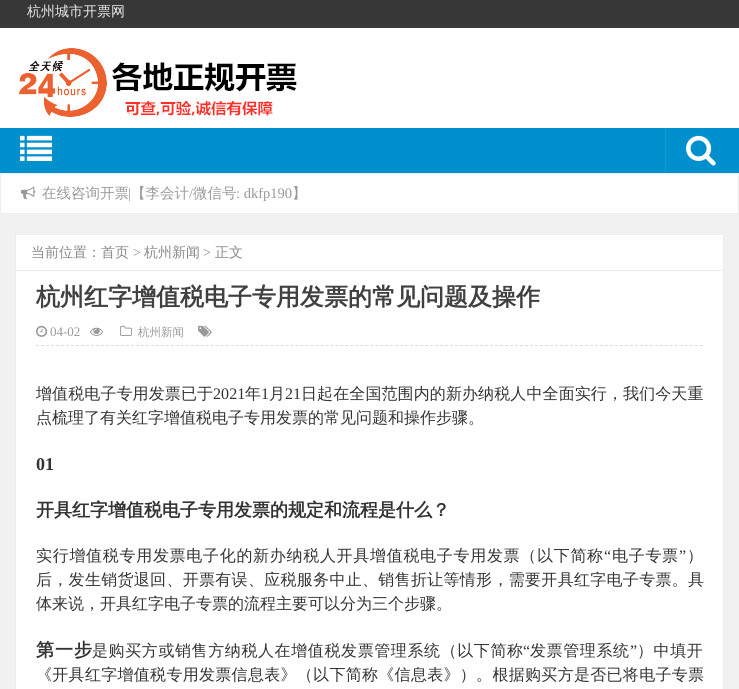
#include <cairo.h>
#include <math.h>
#include <stddef.h>

typedef struct { const char *family; double size; int italic, bold; unsigned color; } style_t;
static cairo_t *ctx;

static void ink(unsigned color) {
    cairo_set_source_rgb(ctx, (color >> 16) / 255.0, (color >> 8 & 255) / 255.0, (color & 255) / 255.0);
}

static void write(double x, double y, const char *s, const style_t *st) {
    cairo_select_font_face(ctx, st->family, st->italic ? CAIRO_FONT_SLANT_ITALIC : CAIRO_FONT_SLANT_NORMAL,
        st->bold ? CAIRO_FONT_WEIGHT_BOLD : CAIRO_FONT_WEIGHT_NORMAL);
    cairo_set_font_size(ctx, st->size);
    ink(st->color);
    cairo_move_to(ctx, x, y);
    cairo_show_text(ctx, s);
}

static void write_spaced(double x, double y, const char *s, double letter, double word) {
    cairo_move_to(ctx, x, y);
    while (*s) {
        char ch[5] = {0};
        int n = 0;
        do ch[n++] = *s++; while ((*s & 0xC0) == 0x80);
        cairo_show_text(ctx, ch);
        cairo_rel_move_to(ctx, letter + word * (*ch == ' '), 0);
    }
}

static void block(double x, double y, double w, double h, unsigned color) {
    ink(color);
    cairo_rectangle(ctx, x, y, w, h);
    cairo_fill(ctx);
}

static void paste(const char *path, double x, double y, double w, double h) {
    cairo_surface_t *image = cairo_image_surface_create_from_png(path);
    cairo_save(ctx);
    cairo_set_source_surface(ctx, image, x, y);
    cairo_rectangle(ctx, x, y, w, h);
    cairo_fill(ctx);
    cairo_restore(ctx);
    cairo_surface_destroy(image);
}

static const style_t s1 = {"WenQuanYi Zen Hei Medium", 14, 0, 0, 0xe7e7e7};
static const style_t s2 = {"WenQuanYi Zen Hei Medium", 14.5, 0, 0, 0x999999};
static const style_t s3 = {"Liberation Serif", 14.5, 0, 0, 0x999999};
static const style_t s4 = {"WenQuanYi Zen Hei Medium", 14, 0, 0, 0x888888};
static const style_t s5 = {"Liberation Serif", 14, 0, 0, 0x888888};
static const style_t s6 = {"WenQuanYi Zen Hei", 24, 0, 1, 0x404040};
static const style_t s7 = {"Liberation Serif", 13, 0, 0, 0x999999};
static const style_t s8 = {"WenQuanYi Zen Hei Medium", 11.5, 0, 0, 0x999999};
static const style_t s9 = {"WenQuanYi Zen Hei Medium", 16, 0, 0, 0x333333};
static const style_t s10 = {"Liberation Serif", 18, 0, 1, 0x333333};
static const style_t s11 = {"WenQuanYi Zen Hei", 18, 0, 1, 0x333333};

int main(void) {
    cairo_surface_t *surface = cairo_image_surface_create(CAIRO_FORMAT_RGB24, 739, 689);
    ctx = cairo_create(surface);
    cairo_font_options_t *options = cairo_font_options_create();
    cairo_font_options_set_hint_metrics(options, CAIRO_HINT_METRICS_OFF);
    cairo_font_options_set_hint_style(options, CAIRO_HINT_STYLE_NONE);
    cairo_set_font_options(ctx, options);
    cairo_set_miter_limit(ctx, 4);
    ink(0xf1f1f1);
    cairo_paint(ctx);
    block(0, 28, 739, 185, 0xffffff);
    block(0, 0, 739, 28, 0x373737);
    write(27, 16, "杭州城市开票网", &s1);
    paste("pic1.png", 19, 48, 278, 69);
    block(0, 128, 739, 45, 0x0090ce);
    paste("pic2.png", 20, 135, 32, 26);
    block(665, 128, 1, 45, 0x1a9bd3);
    paste("pic3.png", 686, 135, 30, 31);
    cairo_rectangle(ctx, 0.5, 173.5, 738, 40);
    ink(0xececec);
    cairo_set_line_width(ctx, 1);
    cairo_stroke(ctx);
    paste("pic4.png", 21, 186, 15, 13);
    write(42, 198, "在线咨询开票", &s2);
    write(128, 198, "|", &s3);
    write(131, 198, "【李会计", &s2);
    write(189, 198, "/", &s3);
    write(193, 198, "微信号", &s2);
    write(236, 198, ": dkfp190", &s3);
    write(292, 198, "】", &s2);
    ink(0xffffff);
    cairo_rectangle(ctx, 15.5, 234.5, 708, 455);
    cairo_fill_preserve(ctx);
    ink(0xececec);
    cairo_stroke(ctx);
    block(16, 270, 707, 1, 0xececec);
    write(31, 257, "当前位置：首页", &s4);
    write(133, 257, ">", &s5);
    write(144, 257, "杭州新闻", &s4);
    write(203, 257, ">", &s5);
    write(215, 257, "正文", &s4);
    cairo_new_path(ctx);
    cairo_move_to(ctx, 36, 345.5);
    cairo_line_to(ctx, 703, 345.5);
    ink(0xdddddd);
    cairo_set_dash(ctx, (double[]){3, 1.99}, 2, 0);
    cairo_stroke(ctx);
    write(36, 305, "杭州红字增值税电子专用发票的常见问题及操作", &s6);
    paste("pic5.png", 36, 325, 12, 12);
    write(50, 336, "04-02", &s7);
    paste("pic6.png", 90, 327, 13, 9);
    paste("pic7.png", 120, 325, 12, 11);
    write(138, 336, "杭州新闻", &s8);
    paste("pic8.png", 198, 325, 14, 12);
    cairo_set_font_size(ctx, 16);
    ink(0x333333);
    write_spaced(36, 399, "增值税电子专用发票已于", 0.1, 0);
    cairo_select_font_face(ctx, "Liberation Serif", CAIRO_FONT_SLANT_NORMAL, CAIRO_FONT_WEIGHT_NORMAL);
    write_spaced(213, 399, "2021", 0.1, 0);
    cairo_select_font_face(ctx, "WenQuanYi Zen Hei Medium", CAIRO_FONT_SLANT_NORMAL, CAIRO_FONT_WEIGHT_NORMAL);
    write_spaced(245, 399, "年", 0.1, 0);
    cairo_select_font_face(ctx, "Liberation Serif", CAIRO_FONT_SLANT_NORMAL, CAIRO_FONT_WEIGHT_NORMAL);
    write_spaced(261, 399, "1", 0.1, 0);
    cairo_select_font_face(ctx, "WenQuanYi Zen Hei Medium", CAIRO_FONT_SLANT_NORMAL, CAIRO_FONT_WEIGHT_NORMAL);
    write_spaced(269, 399, "月", 0.1, 0);
    cairo_select_font_face(ctx, "Liberation Serif", CAIRO_FONT_SLANT_NORMAL, CAIRO_FONT_WEIGHT_NORMAL);
    write_spaced(285, 399, "21", 0.1, 0);
    cairo_select_font_face(ctx, "WenQuanYi Zen Hei Medium", CAIRO_FONT_SLANT_NORMAL, CAIRO_FONT_WEIGHT_NORMAL);
    write_spaced(301, 399, "日起在全国范围内的新办纳税人中全面实行，我们今天重", 0.1, 0);
    write(36, 423, "点梳理了有关红字增值税电子专用发票的常见问题和操作步骤。", &s9);
    write(36, 470, "01", &s10);
    write(36, 516, "开具红字增值税电子专用发票的规定和流程是什么？", &s11);
    cairo_select_font_face(ctx, "WenQuanYi Zen Hei Medium", CAIRO_FONT_SLANT_NORMAL, CAIRO_FONT_WEIGHT_NORMAL);
    cairo_set_font_size(ctx, 16);
    write_spaced(36, 561, "实行增值税专用发票电子化的新办纳税人开具增值税电子专用发票（以下简称", 0.7, 0);
    cairo_select_font_face(ctx, "Liberation Serif", CAIRO_FONT_SLANT_NORMAL, CAIRO_FONT_WEIGHT_NORMAL);
    write_spaced(604, 561, "“", 0.7, 0);
    cairo_select_font_face(ctx, "WenQuanYi Zen Hei Medium", CAIRO_FONT_SLANT_NORMAL, CAIRO_FONT_WEIGHT_NORMAL);
    write_spaced(612, 561, "电子专票", 0.7, 0);
    cairo_select_font_face(ctx, "Liberation Serif", CAIRO_FONT_SLANT_NORMAL, CAIRO_FONT_WEIGHT_NORMAL);
    write_spaced(679, 561, "”", 0.7, 0);
    cairo_select_font_face(ctx, "WenQuanYi Zen Hei Medium", CAIRO_FONT_SLANT_NORMAL, CAIRO_FONT_WEIGHT_NORMAL);
    write_spaced(687, 561, "）", 0.7, 0);
    write_spaced(36, 585, "后，发生销货退回、开票有误、应税服务中止、销售折让等情形，需要开具红字电子专票。具", 0.3, 0);
    write(36, 609, "体来说，开具红字电子专票的流程主要可以分为三个步骤。", &s9);
    cairo_select_font_face(ctx, "WenQuanYi Zen Hei", CAIRO_FONT_SLANT_NORMAL, CAIRO_FONT_WEIGHT_BOLD);
    cairo_set_font_size(ctx, 18);
    write_spaced(36, 656, "第一步", 1, 0);
    cairo_select_font_face(ctx, "WenQuanYi Zen Hei Medium", CAIRO_FONT_SLANT_NORMAL, CAIRO_FONT_WEIGHT_NORMAL);
    cairo_set_font_size(ctx, 16);
    write_spaced(92, 656, "是购买方或销售方纳税人在增值税发票管理系统（以下简称", 0.6, 0);
    cairo_select_font_face(ctx, "Liberation Serif", CAIRO_FONT_SLANT_NORMAL, CAIRO_FONT_WEIGHT_NORMAL);
    write_spaced(523, 656, "“", 0.6, 0);
    cairo_select_font_face(ctx, "WenQuanYi Zen Hei Medium", CAIRO_FONT_SLANT_NORMAL, CAIRO_FONT_WEIGHT_NORMAL);
    write_spaced(530, 656, "发票管理系统", 0.6, 0);
    cairo_select_font_face(ctx, "Liberation Serif", CAIRO_FONT_SLANT_NORMAL, CAIRO_FONT_WEIGHT_NORMAL);
    write_spaced(630, 656, "”", 0.6, 0);
    cairo_select_font_face(ctx, "WenQuanYi Zen Hei Medium", CAIRO_FONT_SLANT_NORMAL, CAIRO_FONT_WEIGHT_NORMAL);
    write_spaced(637, 656, "）中填开", 0.6, 0);
    write_spaced(36, 680, "《开具红字增值税专用发票信息表》（以下简称《信息表》）。根据购买方是否已将电子专票", 0.3, 0);
    cairo_surface_write_to_png(surface, "screenshot.png");
    cairo_font_options_destroy(options);
    cairo_destroy(ctx);
    cairo_surface_destroy(surface);
    return 0;
}
